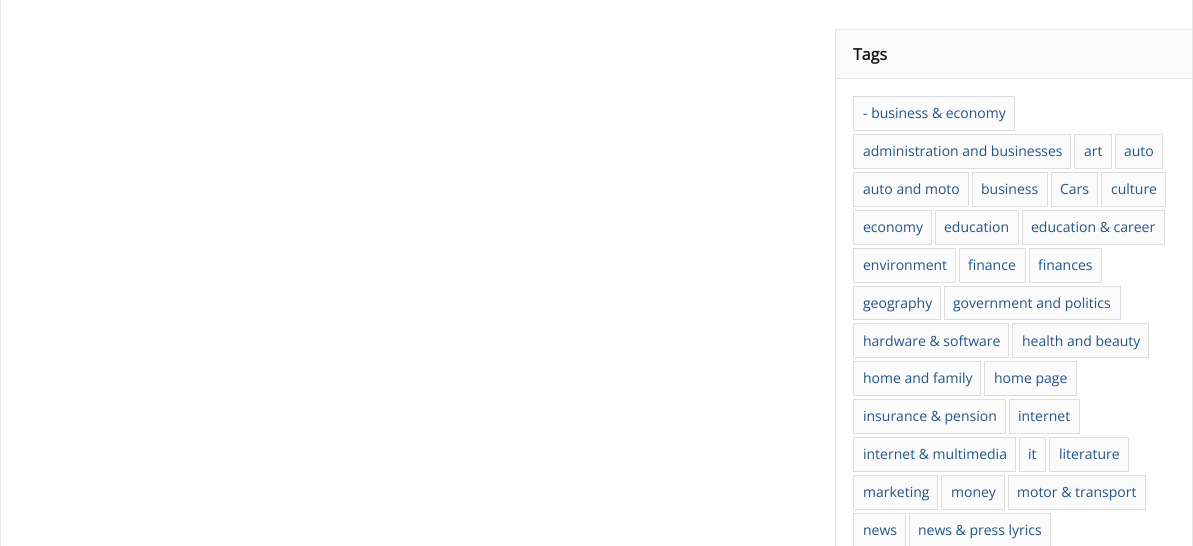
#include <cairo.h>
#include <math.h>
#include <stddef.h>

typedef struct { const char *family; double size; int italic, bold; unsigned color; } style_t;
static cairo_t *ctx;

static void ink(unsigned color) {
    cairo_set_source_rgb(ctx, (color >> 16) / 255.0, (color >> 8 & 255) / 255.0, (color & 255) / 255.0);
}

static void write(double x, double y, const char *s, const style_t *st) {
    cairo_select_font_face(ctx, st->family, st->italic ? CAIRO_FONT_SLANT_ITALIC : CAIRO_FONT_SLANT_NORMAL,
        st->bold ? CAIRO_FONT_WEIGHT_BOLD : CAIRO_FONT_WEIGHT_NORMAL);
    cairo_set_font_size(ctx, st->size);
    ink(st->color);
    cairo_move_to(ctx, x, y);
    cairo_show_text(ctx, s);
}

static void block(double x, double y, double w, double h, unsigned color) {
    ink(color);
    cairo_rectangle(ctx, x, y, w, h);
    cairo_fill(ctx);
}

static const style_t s1 = {"Open Sans", 16, 0, 1, 0x151515};
static const style_t s2 = {"Open Sans", 14, 0, 0, 0x225588};

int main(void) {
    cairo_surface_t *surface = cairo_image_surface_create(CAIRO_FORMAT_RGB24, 1193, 546);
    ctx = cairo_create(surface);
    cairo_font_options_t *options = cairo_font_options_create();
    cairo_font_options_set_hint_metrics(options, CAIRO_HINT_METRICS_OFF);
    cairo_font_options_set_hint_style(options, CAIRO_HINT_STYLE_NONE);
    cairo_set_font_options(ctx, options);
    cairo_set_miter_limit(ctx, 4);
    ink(0xffffff);
    cairo_paint(ctx);
    block(1192, 0, 1, 29, 0xe5e5e5);
    block(0, 0, 1, 546, 0xe5e5e5);
    cairo_rectangle(ctx, 835.5, 29.5, 357, 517);
    cairo_set_line_width(ctx, 1);
    cairo_stroke(ctx);
    block(836, 30, 356, 48, 0xfbfbfb);
    block(836, 78, 356, 1, 0xe5e5e5);
    write(853, 60, "Tags", &s1);
    ink(0xfbfbfb);
    cairo_rectangle(ctx, 853.5, 96.5, 161, 34);
    cairo_fill_preserve(ctx);
    ink(0xdddddd);
    cairo_stroke(ctx);
    write(863, 118, "- business & economy", &s2);
    ink(0xfbfbfb);
    cairo_rectangle(ctx, 853.5, 134.5, 217, 34);
    cairo_fill_preserve(ctx);
    ink(0xdddddd);
    cairo_stroke(ctx);
    write(863, 156, "administration and businesses", &s2);
    ink(0xfbfbfb);
    cairo_rectangle(ctx, 1074.5, 134.5, 37, 34);
    cairo_fill_preserve(ctx);
    ink(0xdddddd);
    cairo_stroke(ctx);
    write(1084, 156, "art", &s2);
    ink(0xfbfbfb);
    cairo_rectangle(ctx, 1115.5, 134.5, 47, 34);
    cairo_fill_preserve(ctx);
    ink(0xdddddd);
    cairo_stroke(ctx);
    write(1124, 156, "auto", &s2);
    ink(0xfbfbfb);
    cairo_rectangle(ctx, 853.5, 172.5, 115, 34);
    cairo_fill_preserve(ctx);
    ink(0xdddddd);
    cairo_stroke(ctx);
    write(863, 194, "auto and moto", &s2);
    ink(0xfbfbfb);
    cairo_rectangle(ctx, 972.5, 172.5, 75, 34);
    cairo_fill_preserve(ctx);
    ink(0xdddddd);
    cairo_stroke(ctx);
    write(981, 194, "business", &s2);
    ink(0xfbfbfb);
    cairo_rectangle(ctx, 1051.5, 172.5, 46, 34);
    cairo_fill_preserve(ctx);
    ink(0xdddddd);
    cairo_stroke(ctx);
    write(1060, 194, "Cars", &s2);
    ink(0xfbfbfb);
    cairo_rectangle(ctx, 1101.5, 172.5, 64, 34);
    cairo_fill_preserve(ctx);
    ink(0xdddddd);
    cairo_stroke(ctx);
    write(1111, 194, "culture", &s2);
    ink(0xfbfbfb);
    cairo_rectangle(ctx, 853.5, 210.5, 78, 34);
    cairo_fill_preserve(ctx);
    ink(0xdddddd);
    cairo_stroke(ctx);
    write(863, 232, "economy", &s2);
    ink(0xfbfbfb);
    cairo_rectangle(ctx, 935.5, 210.5, 83, 34);
    cairo_fill_preserve(ctx);
    ink(0xdddddd);
    cairo_stroke(ctx);
    write(944, 232, "education", &s2);
    ink(0xfbfbfb);
    cairo_rectangle(ctx, 1022.5, 210.5, 142, 34);
    cairo_fill_preserve(ctx);
    ink(0xdddddd);
    cairo_stroke(ctx);
    write(1031, 232, "education & career", &s2);
    ink(0xfbfbfb);
    cairo_rectangle(ctx, 853.5, 248.5, 102, 34);
    cairo_fill_preserve(ctx);
    ink(0xdddddd);
    cairo_stroke(ctx);
    write(863, 270, "environment", &s2);
    ink(0xfbfbfb);
    cairo_rectangle(ctx, 959.5, 248.5, 66, 34);
    cairo_fill_preserve(ctx);
    ink(0xdddddd);
    cairo_stroke(ctx);
    write(968, 270, "finance", &s2);
    ink(0xfbfbfb);
    cairo_rectangle(ctx, 1029.5, 248.5, 72, 34);
    cairo_fill_preserve(ctx);
    ink(0xdddddd);
    cairo_stroke(ctx);
    write(1038, 270, "finances", &s2);
    ink(0xfbfbfb);
    cairo_rectangle(ctx, 853.5, 286.5, 87, 33);
    cairo_fill_preserve(ctx);
    ink(0xdddddd);
    cairo_stroke(ctx);
    write(863, 308, "geography", &s2);
    ink(0xfbfbfb);
    cairo_rectangle(ctx, 944.5, 286.5, 176, 33);
    cairo_fill_preserve(ctx);
    ink(0xdddddd);
    cairo_stroke(ctx);
    write(953, 308, "government and politics", &s2);
    ink(0xfbfbfb);
    cairo_rectangle(ctx, 853.5, 323.5, 155, 34);
    cairo_fill_preserve(ctx);
    ink(0xdddddd);
    cairo_stroke(ctx);
    write(863, 346, "hardware & software", &s2);
    ink(0xfbfbfb);
    cairo_rectangle(ctx, 1012.5, 323.5, 136, 34);
    cairo_fill_preserve(ctx);
    ink(0xdddddd);
    cairo_stroke(ctx);
    write(1022, 346, "health and beauty", &s2);
    ink(0xfbfbfb);
    cairo_rectangle(ctx, 853.5, 361.5, 127, 34);
    cairo_fill_preserve(ctx);
    ink(0xdddddd);
    cairo_stroke(ctx);
    write(863, 383, "home and family", &s2);
    ink(0xfbfbfb);
    cairo_rectangle(ctx, 984.5, 361.5, 92, 34);
    cairo_fill_preserve(ctx);
    ink(0xdddddd);
    cairo_stroke(ctx);
    write(994, 383, "home page", &s2);
    ink(0xfbfbfb);
    cairo_rectangle(ctx, 853.5, 399.5, 152, 34);
    cairo_fill_preserve(ctx);
    ink(0xdddddd);
    cairo_stroke(ctx);
    write(863, 421, "insurance & pension", &s2);
    ink(0xfbfbfb);
    cairo_rectangle(ctx, 1009.5, 399.5, 70, 34);
    cairo_fill_preserve(ctx);
    ink(0xdddddd);
    cairo_stroke(ctx);
    write(1018, 421, "internet", &s2);
    ink(0xfbfbfb);
    cairo_rectangle(ctx, 853.5, 437.5, 162, 34);
    cairo_fill_preserve(ctx);
    ink(0xdddddd);
    cairo_stroke(ctx);
    write(863, 459, "internet & multimedia", &s2);
    ink(0xfbfbfb);
    cairo_rectangle(ctx, 1019.5, 437.5, 26, 34);
    cairo_fill_preserve(ctx);
    ink(0xdddddd);
    cairo_stroke(ctx);
    write(1028, 459, "it", &s2);
    ink(0xfbfbfb);
    cairo_rectangle(ctx, 1049.5, 437.5, 79, 34);
    cairo_fill_preserve(ctx);
    ink(0xdddddd);
    cairo_stroke(ctx);
    write(1059, 459, "literature", &s2);
    ink(0xfbfbfb);
    cairo_rectangle(ctx, 853.5, 475.5, 84, 34);
    cairo_fill_preserve(ctx);
    ink(0xdddddd);
    cairo_stroke(ctx);
    write(863, 497, "marketing", &s2);
    ink(0xfbfbfb);
    cairo_rectangle(ctx, 941.5, 475.5, 63, 34);
    cairo_fill_preserve(ctx);
    ink(0xdddddd);
    cairo_stroke(ctx);
    write(951, 497, "money", &s2);
    ink(0xfbfbfb);
    cairo_rectangle(ctx, 1008.5, 475.5, 137, 34);
    cairo_fill_preserve(ctx);
    ink(0xdddddd);
    cairo_stroke(ctx);
    write(1017, 497, "motor & transport", &s2);
    ink(0xfbfbfb);
    cairo_rectangle(ctx, 853.5, 513.5, 52, 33);
    cairo_fill_preserve(ctx);
    ink(0xdddddd);
    cairo_stroke(ctx);
    write(863, 535, "news", &s2);
    ink(0xfbfbfb);
    cairo_rectangle(ctx, 909.5, 513.5, 141, 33);
    cairo_fill_preserve(ctx);
    ink(0xdddddd);
    cairo_stroke(ctx);
    write(918, 535, "news & press lyrics", &s2);
    cairo_surface_write_to_png(surface, "screenshot.png");
    cairo_font_options_destroy(options);
    cairo_destroy(ctx);
    cairo_surface_destroy(surface);
    return 0;
}
